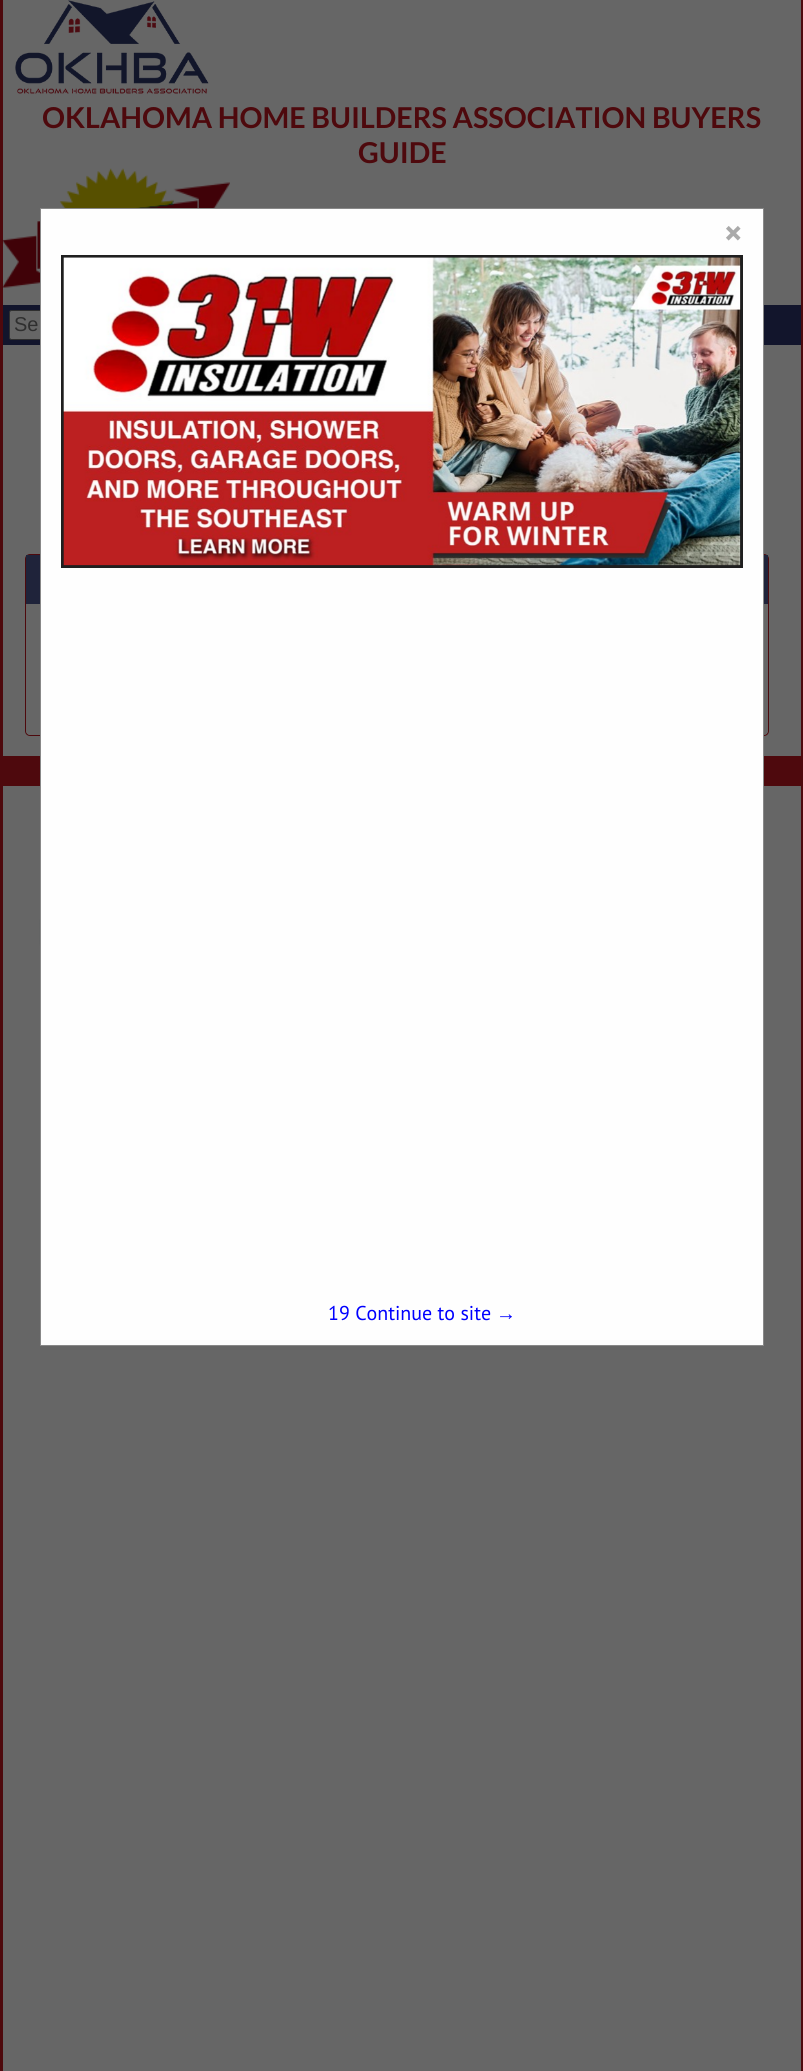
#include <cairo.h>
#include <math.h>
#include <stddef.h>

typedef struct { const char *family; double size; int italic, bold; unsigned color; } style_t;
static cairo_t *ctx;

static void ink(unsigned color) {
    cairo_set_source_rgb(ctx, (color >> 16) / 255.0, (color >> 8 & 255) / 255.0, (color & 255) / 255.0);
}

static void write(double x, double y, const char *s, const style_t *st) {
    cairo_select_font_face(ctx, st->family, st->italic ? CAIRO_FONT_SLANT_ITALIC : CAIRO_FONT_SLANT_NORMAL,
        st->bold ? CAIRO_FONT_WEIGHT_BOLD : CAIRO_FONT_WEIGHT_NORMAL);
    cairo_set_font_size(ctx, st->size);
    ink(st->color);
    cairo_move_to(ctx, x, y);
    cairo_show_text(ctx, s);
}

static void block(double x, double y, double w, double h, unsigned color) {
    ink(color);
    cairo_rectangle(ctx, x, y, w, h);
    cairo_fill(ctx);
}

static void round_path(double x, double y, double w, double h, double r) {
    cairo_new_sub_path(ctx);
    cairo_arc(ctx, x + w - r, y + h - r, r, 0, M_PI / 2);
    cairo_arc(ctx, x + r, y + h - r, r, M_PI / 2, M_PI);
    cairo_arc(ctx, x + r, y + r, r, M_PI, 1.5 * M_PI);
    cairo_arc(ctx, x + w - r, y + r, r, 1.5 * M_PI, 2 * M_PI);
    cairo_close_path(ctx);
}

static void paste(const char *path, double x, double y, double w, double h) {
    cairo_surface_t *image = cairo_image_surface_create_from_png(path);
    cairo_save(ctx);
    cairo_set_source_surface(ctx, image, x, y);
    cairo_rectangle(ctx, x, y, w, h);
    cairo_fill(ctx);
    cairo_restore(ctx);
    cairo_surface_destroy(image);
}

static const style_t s1 = {"Lato", 28.75, 0, 1, 0x4e090d};
static const style_t s2 = {"Liberation Sans", 20, 0, 0, 0x2f2f2f};
static const style_t s3 = {"PT Sans", 35, 0, 1, 0xaaaaaa};
static const style_t s4 = {"PT Sans", 20, 0, 0, 0x0000ff};
static const style_t s5 = {"Liberation Sans", 20, 0, 0, 0x0000ff};

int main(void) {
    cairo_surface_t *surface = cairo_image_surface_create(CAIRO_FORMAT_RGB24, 803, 2071);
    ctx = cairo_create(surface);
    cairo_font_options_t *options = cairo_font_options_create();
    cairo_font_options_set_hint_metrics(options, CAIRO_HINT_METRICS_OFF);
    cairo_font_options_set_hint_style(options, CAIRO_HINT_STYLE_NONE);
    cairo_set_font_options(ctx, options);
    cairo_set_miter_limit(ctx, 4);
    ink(0x666666);
    cairo_paint(ctx);
    block(801, 0, 2, 2071, 0x4e090d);
    block(0, 0, 3, 2071, 0x4e090d);
    paste("pic1.png", 15, 0, 194, 94);
    write(42, 128, "OKLAHOMA HOME BUILDERS ASSOCIATION BUYERS", &s1);
    write(358, 163, "GUIDE", &s1);
    paste("pic2.png", 2, 168, 228, 120);
    block(3, 305, 798, 40, 0x12152c);
    ink(0x666666);
    round_path(9.5, 310.5, 321, 29, 2);
    cairo_fill_preserve(ctx);
    ink(0x2f2f2f);
    cairo_set_line_width(ctx, 1);
    cairo_stroke(ctx);
    write(14, 331, "Se", &s2);
    round_path(25.5, 554.5, 743, 181, 4.5);
    ink(0x4e090d);
    cairo_stroke(ctx);
    block(26, 555, 742, 49, 0x1f233a);
    ink(0x666666);
    round_path(26, 604, 742, 131, 5);
    cairo_fill(ctx);
    block(3, 756, 798, 30, 0x4e090d);
    ink(0xfefefe);
    cairo_rectangle(ctx, 40.5, 208.5, 723, 1137);
    cairo_fill_preserve(ctx);
    ink(0x888888);
    cairo_stroke(ctx);
    write(724, 245, "×", &s3);
    cairo_rectangle(ctx, 62.5, 256.5, 679, 310);
    ink(0x1f1f1f);
    cairo_set_line_width(ctx, 3);
    cairo_stroke(ctx);
    paste("pic3.png", 63, 257, 678, 309);
    write(328, 1320, "19 Continue to site", &s4);
    write(496, 1320, "→", &s5);
    paste("pic4.png", 39, 917, 1, 59);
    cairo_surface_write_to_png(surface, "screenshot.png");
    cairo_font_options_destroy(options);
    cairo_destroy(ctx);
    cairo_surface_destroy(surface);
    return 0;
}
